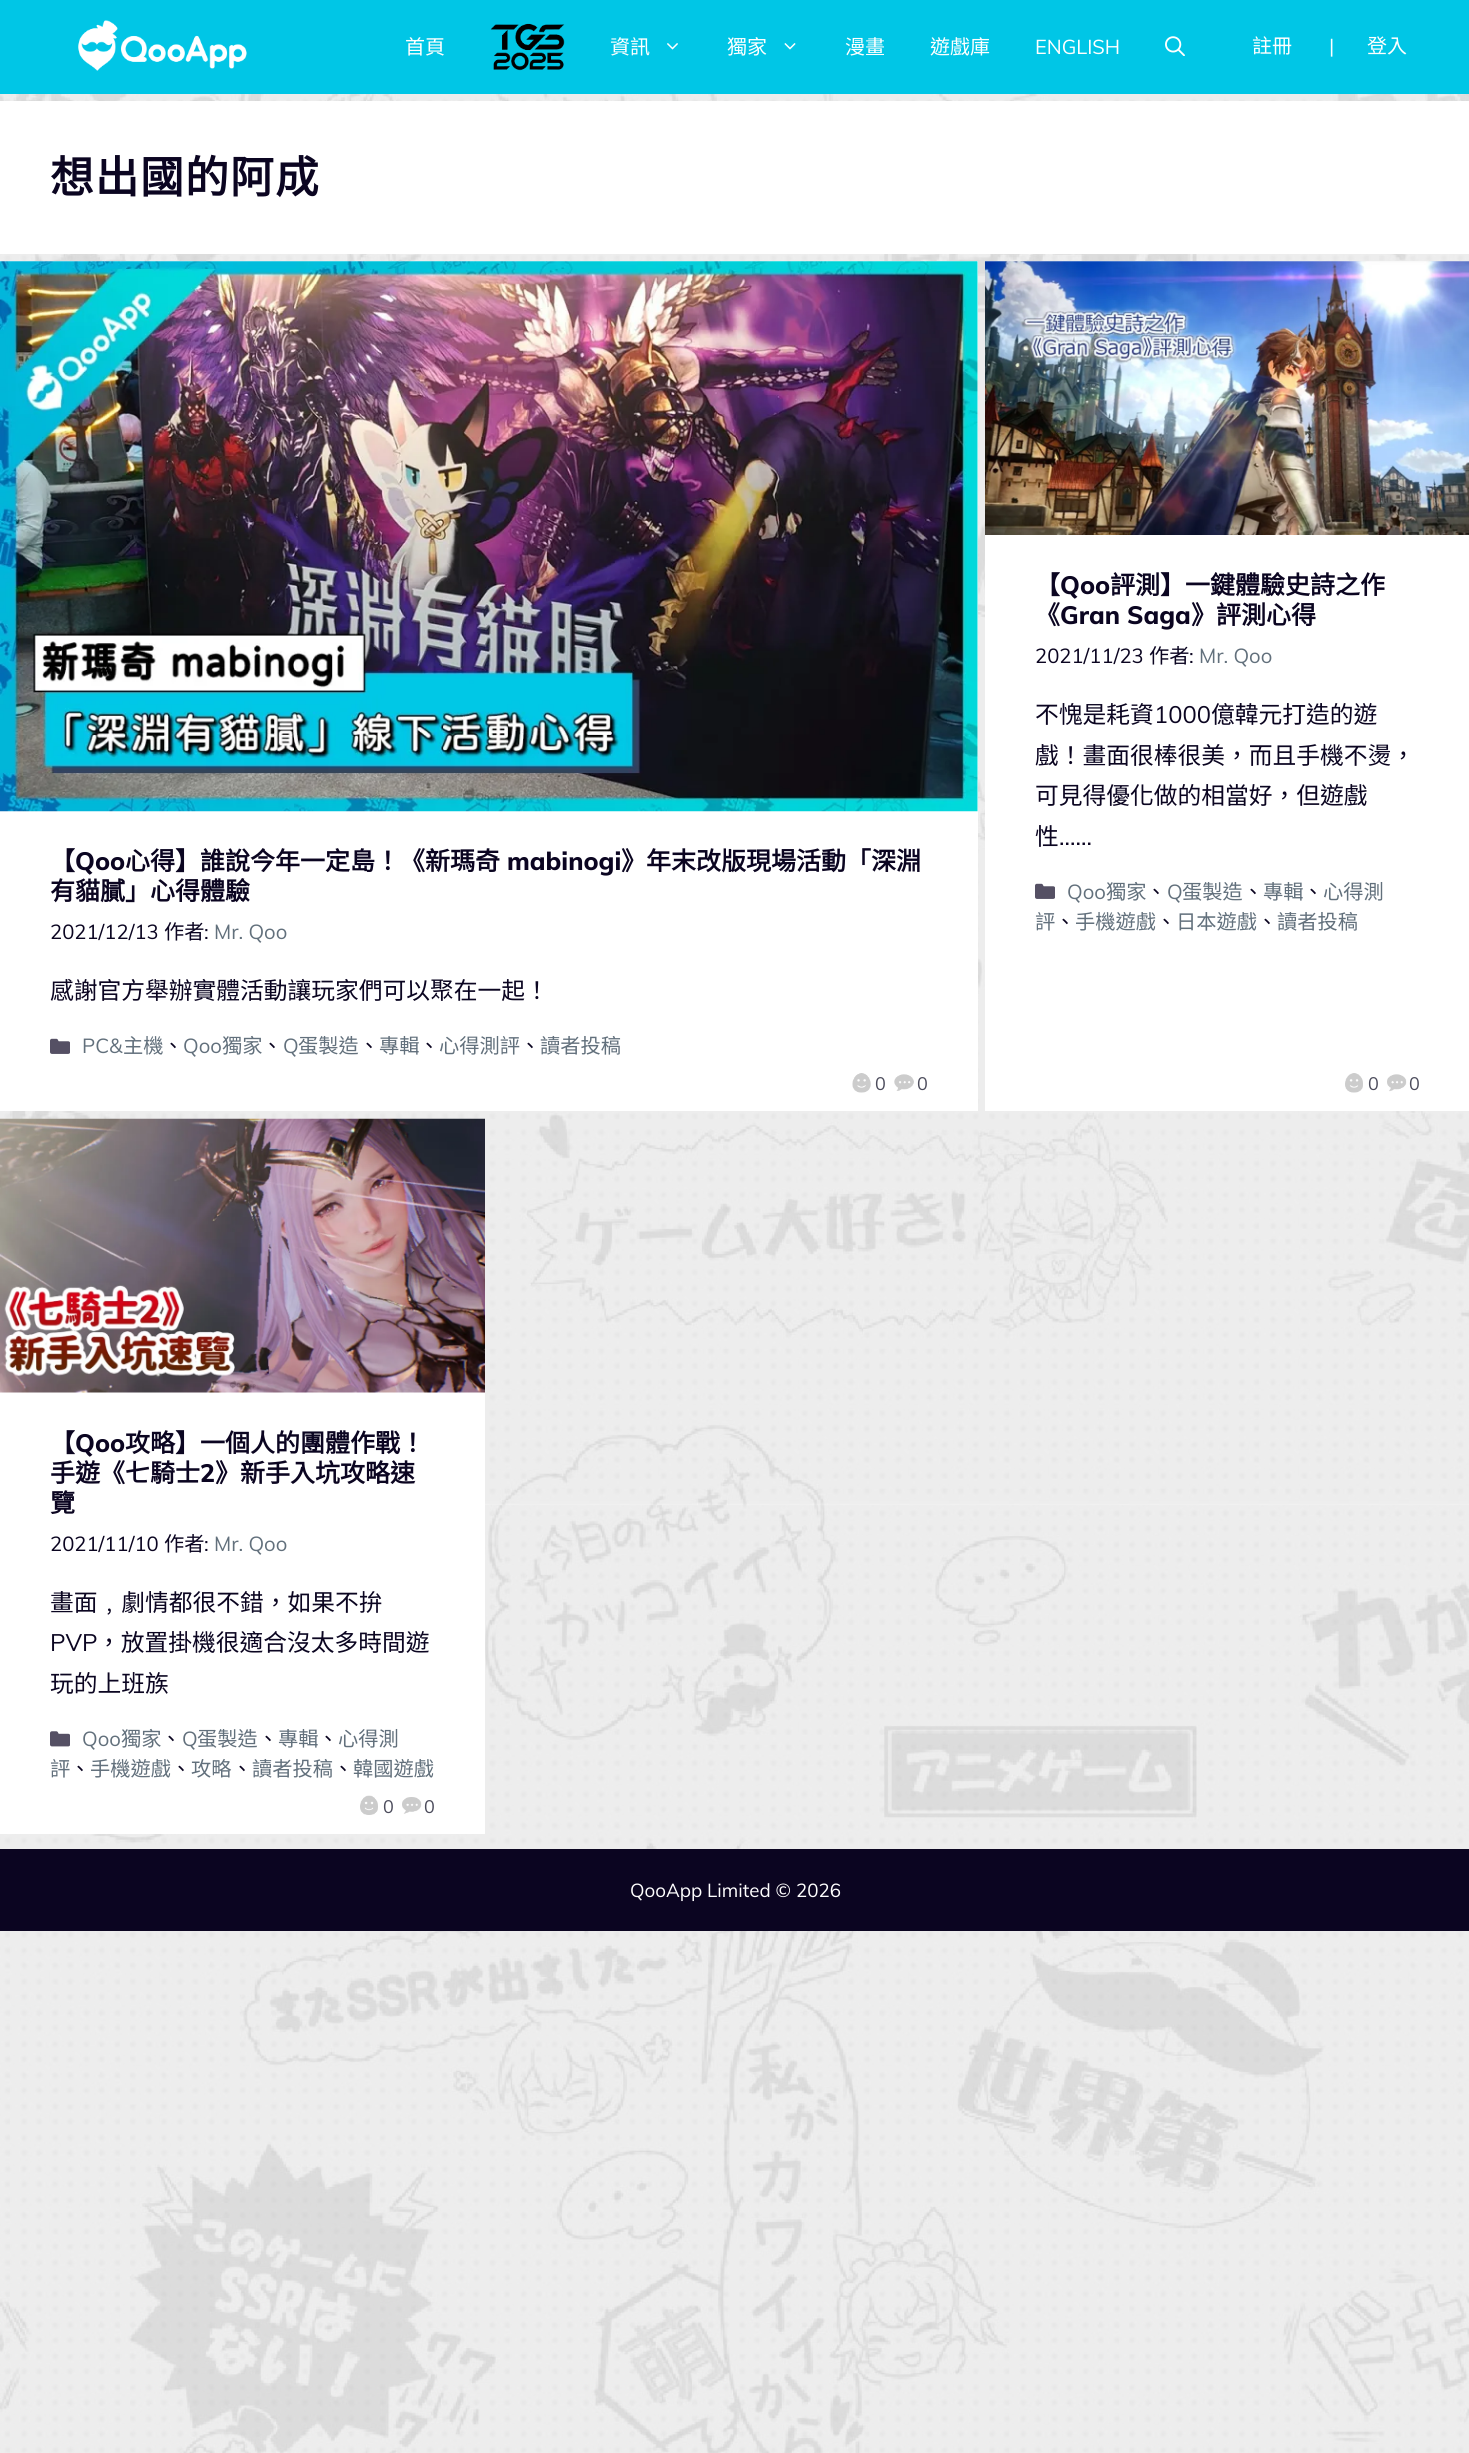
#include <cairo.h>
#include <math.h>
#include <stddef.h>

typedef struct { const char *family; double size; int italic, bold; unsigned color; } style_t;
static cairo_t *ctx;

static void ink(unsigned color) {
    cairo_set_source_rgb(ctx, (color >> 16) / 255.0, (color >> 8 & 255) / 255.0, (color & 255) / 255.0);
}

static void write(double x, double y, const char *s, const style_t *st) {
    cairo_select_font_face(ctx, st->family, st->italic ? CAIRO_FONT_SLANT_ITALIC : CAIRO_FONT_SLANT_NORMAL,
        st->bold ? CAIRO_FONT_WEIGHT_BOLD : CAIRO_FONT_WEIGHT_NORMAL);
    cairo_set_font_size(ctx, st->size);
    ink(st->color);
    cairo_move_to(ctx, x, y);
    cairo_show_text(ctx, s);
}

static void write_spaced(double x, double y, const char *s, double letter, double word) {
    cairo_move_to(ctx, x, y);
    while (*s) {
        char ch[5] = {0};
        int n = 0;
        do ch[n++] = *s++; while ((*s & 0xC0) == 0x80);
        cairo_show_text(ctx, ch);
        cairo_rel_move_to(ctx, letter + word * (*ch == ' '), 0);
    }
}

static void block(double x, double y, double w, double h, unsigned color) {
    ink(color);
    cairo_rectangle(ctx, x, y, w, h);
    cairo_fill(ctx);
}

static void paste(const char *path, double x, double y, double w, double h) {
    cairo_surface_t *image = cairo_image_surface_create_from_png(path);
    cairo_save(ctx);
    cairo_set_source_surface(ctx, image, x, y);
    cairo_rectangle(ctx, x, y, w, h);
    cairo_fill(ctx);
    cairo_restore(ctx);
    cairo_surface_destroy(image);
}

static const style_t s1 = {"Noto Sans CJK TC", 20, 0, 0, 0xffffff};
static const style_t s2 = {"Muli", 20, 0, 0, 0xffffff};
static const style_t s3 = {"Noto Sans CJK TC", 25, 0, 1, 0x0b0521};
static const style_t s4 = {"Muli ExtraBold", 25, 0, 0, 0x0b0521};
static const style_t s5 = {"Muli", 20.25, 0, 0, 0x0b0521};
static const style_t s6 = {"Noto Sans CJK TC", 20.25, 0, 0, 0x0b0521};
static const style_t s7 = {"Muli", 20.25, 0, 0, 0x62707c};
static const style_t s8 = {"Muli", 18, 0, 0, 0x4c4c5c};
static const style_t s9 = {"Noto Sans CJK TC", 23.75, 0, 0, 0x0b0521};
static const style_t s10 = {"Noto Sans CJK TC", 20.25, 0, 0, 0x62707c};
static const style_t s11 = {"Muli", 23.75, 0, 0, 0x0b0521};
static const style_t s12 = {"Muli", 18.75, 0, 0, 0xffffff};

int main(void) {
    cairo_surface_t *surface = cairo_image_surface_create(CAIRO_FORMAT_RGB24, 1469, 2453);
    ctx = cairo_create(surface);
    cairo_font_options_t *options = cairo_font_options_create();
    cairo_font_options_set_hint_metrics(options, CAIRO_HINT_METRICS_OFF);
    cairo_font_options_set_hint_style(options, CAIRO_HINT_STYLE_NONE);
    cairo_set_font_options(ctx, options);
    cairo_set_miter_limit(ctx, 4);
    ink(0xffffff);
    cairo_paint(ctx);
    paste("pic1.png", 0, 94, 1469, 2359);
    block(0, 0, 1469, 94, 0x00c6e6);
    paste("pic2.png", 78, 20, 169, 51);
    write(405, 54, "首頁", &s1);
    paste("pic3.png", 490, 23, 75, 48);
    write(610, 54, "資訊", &s1);
    paste("pic4.png", 667, 43, 11, 7);
    write(727, 54, "獨家", &s1);
    paste("pic5.png", 784, 43, 12, 7);
    write(845, 54, "漫畫", &s1);
    write(930, 54, "遊戲庫", &s1);
    write(1035, 54, "ENGLISH", &s2);
    paste("pic6.png", 1165, 36, 20, 20);
    write(1252, 53, "註冊", &s1);
    write(1329, 53, "|", &s2);
    write(1367, 53, "登入", &s1);
    block(0, 101, 1469, 153, 0xffffff);
    cairo_select_font_face(ctx, "Noto Sans CJK TC", CAIRO_FONT_SLANT_NORMAL, CAIRO_FONT_WEIGHT_BOLD);
    cairo_set_font_size(ctx, 43.75);
    ink(0x0b0521);
    write_spaced(50, 193, "想出國的阿成", 1.25, 0);
    block(0, 261, 978, 850, 0xffffff);
    paste("pic7.png", 0, 261, 978, 551);
    write(50, 870, "【", &s3);
    write(75, 870, "Qoo", &s4);
    write(125, 870, "心得】誰說今年一定島！《新瑪奇", &s3);
    write(507, 870, "mabinogi", &s4);
    write(621, 870, "》年末改版現場活動「深淵", &s3);
    write(50, 900, "有貓膩」心得體驗", &s3);
    write(50, 939, "2021/12/13", &s5);
    write(164, 939, "作者", &s6);
    write(204, 939, ":", &s5);
    write(214, 939, "Mr. Qoo", &s7);
    paste("pic8.png", 852, 1073, 19, 20);
    write(875, 1090, "0", &s8);
    paste("pic9.png", 894, 1074, 20, 17);
    write(917, 1090, "0", &s8);
    write(50, 999, "感謝官方舉辦實體活動讓玩家們可以聚在一起！", &s9);
    paste("pic10.png", 50, 1038, 20, 16);
    write(82, 1053, "PC&", &s7);
    write(123, 1053, "主機", &s10);
    write(163, 1053, "、", &s6);
    write(183, 1053, "Qoo", &s7);
    write(222, 1053, "獨家", &s10);
    write(262, 1053, "、", &s6);
    write(283, 1053, "Q", &s7);
    write(298, 1053, "蛋製造", &s10);
    write(359, 1053, "、", &s6);
    write(379, 1053, "專輯", &s10);
    write(419, 1053, "、", &s6);
    write(439, 1053, "心得測評", &s10);
    write(520, 1053, "、", &s6);
    write(540, 1053, "讀者投稿", &s10);
    block(985, 261, 484, 850, 0xffffff);
    paste("pic11.png", 985, 261, 484, 274);
    write(1035, 594, "【", &s3);
    write(1060, 594, "Qoo", &s4);
    write(1110, 594, "評測】一鍵體驗史詩之作", &s3);
    write(1035, 624, "《", &s3);
    write(1060, 624, "Gran Saga", &s4);
    write(1191, 624, "》評測心得", &s3);
    write(1035, 663, "2021/11/23", &s5);
    write(1149, 663, "作者", &s6);
    write(1189, 663, ":", &s5);
    write(1199, 663, "Mr. Qoo", &s7);
    paste("pic12.png", 1345, 1073, 18, 20);
    write(1368, 1090, "0", &s8);
    paste("pic13.png", 1387, 1074, 20, 18);
    write(1409, 1090, "0", &s8);
    write(1035, 723, "不愧是耗資", &s9);
    write(1154, 723, "1000", &s11);
    write(1211, 723, "億韓元打造的遊", &s9);
    write(1035, 764, "戲！畫面很棒很美，而且手機不燙，", &s9);
    write(1035, 804, "可見得優化做的相當好，但遊戲", &s9);
    write(1035, 845, "性", &s9);
    write(1059, 845, "……", &s11);
    paste("pic10.png", 1035, 883, 20, 16);
    write(1067, 899, "Qoo", &s7);
    write(1106, 899, "獨家", &s10);
    write(1146, 899, "、", &s6);
    write(1167, 899, "Q", &s7);
    write(1182, 899, "蛋製造", &s10);
    write(1243, 899, "、", &s6);
    write(1263, 899, "專輯", &s10);
    write(1303, 899, "、", &s6);
    write(1323, 899, "心得測", &s10);
    write(1035, 929, "評", &s10);
    write(1055, 929, "、", &s6);
    write(1075, 929, "手機遊戲", &s10);
    write(1156, 929, "、", &s6);
    write(1176, 929, "日本遊戲", &s10);
    write(1257, 929, "、", &s6);
    write(1277, 929, "讀者投稿", &s10);
    block(0, 1392, 485, 442, 0xffffff);
    paste("pic14.png", 0, 1118, 485, 275);
    write(50, 1452, "【", &s3);
    write(75, 1452, "Qoo", &s4);
    write(125, 1452, "攻略】一個人的團體作戰！", &s3);
    write(50, 1482, "手遊《七騎士", &s3);
    write(200, 1482, "2", &s4);
    write(215, 1482, "》新手入坑攻略速", &s3);
    write(50, 1512, "覽", &s3);
    write(50, 1551, "2021/11/10", &s5);
    write(164, 1551, "作者", &s6);
    write(204, 1551, ":", &s5);
    write(214, 1551, "Mr. Qoo", &s7);
    paste("pic15.png", 360, 1795, 18, 20);
    write(383, 1813, "0", &s8);
    paste("pic16.png", 402, 1797, 20, 17);
    write(424, 1813, "0", &s8);
    write(50, 1611, "畫面﹐劇情都很不錯，如果不拚", &s9);
    write(50, 1651, "PVP", &s11);
    write(97, 1651, "，放置掛機很適合沒太多時間遊", &s9);
    write(50, 1692, "玩的上班族", &s9);
    paste("pic17.png", 50, 1731, 20, 16);
    write(82, 1746, "Qoo", &s7);
    write(121, 1746, "獨家", &s10);
    write(161, 1746, "、", &s6);
    write(182, 1746, "Q", &s7);
    write(197, 1746, "蛋製造", &s10);
    write(258, 1746, "、", &s6);
    write(278, 1746, "專輯", &s10);
    write(318, 1746, "、", &s6);
    write(338, 1746, "心得測", &s10);
    write(50, 1776, "評", &s10);
    write(70, 1776, "、", &s6);
    write(90, 1776, "手機遊戲", &s10);
    write(171, 1776, "、", &s6);
    write(191, 1776, "攻略", &s10);
    write(232, 1776, "、", &s6);
    write(252, 1776, "讀者投稿", &s10);
    write(333, 1776, "、", &s6);
    write(353, 1776, "韓國遊戲", &s10);
    block(0, 1849, 1469, 82, 0x0b0521);
    write(630, 1897, "QooApp Limited © 2026", &s12);
    cairo_surface_write_to_png(surface, "screenshot.png");
    cairo_font_options_destroy(options);
    cairo_destroy(ctx);
    cairo_surface_destroy(surface);
    return 0;
}
